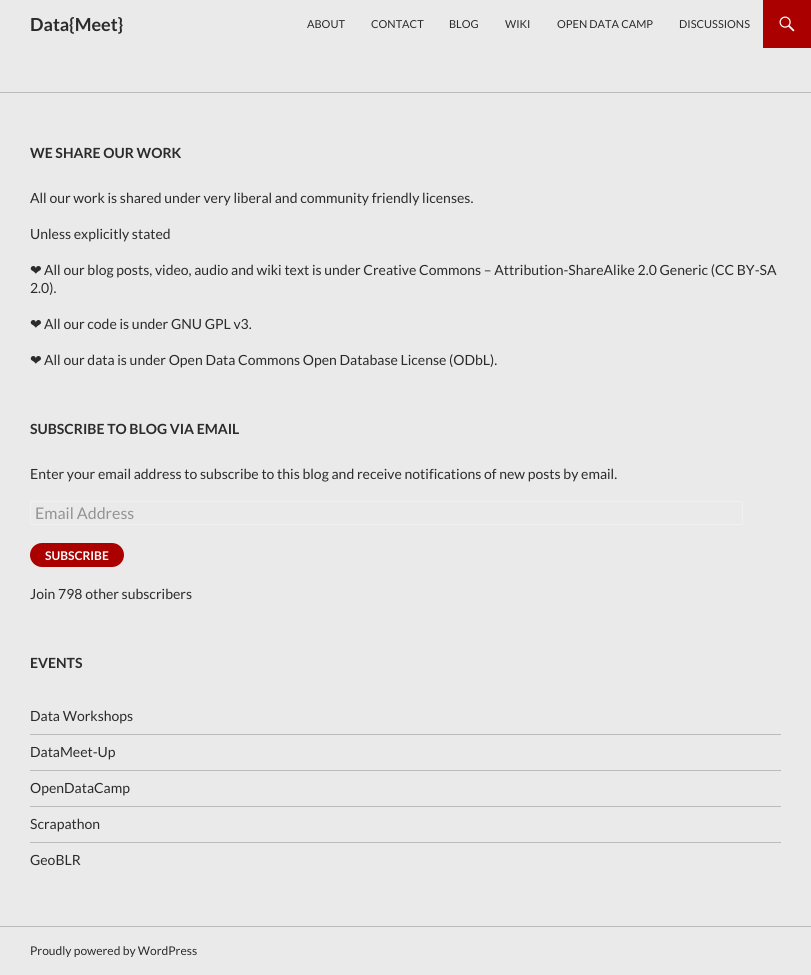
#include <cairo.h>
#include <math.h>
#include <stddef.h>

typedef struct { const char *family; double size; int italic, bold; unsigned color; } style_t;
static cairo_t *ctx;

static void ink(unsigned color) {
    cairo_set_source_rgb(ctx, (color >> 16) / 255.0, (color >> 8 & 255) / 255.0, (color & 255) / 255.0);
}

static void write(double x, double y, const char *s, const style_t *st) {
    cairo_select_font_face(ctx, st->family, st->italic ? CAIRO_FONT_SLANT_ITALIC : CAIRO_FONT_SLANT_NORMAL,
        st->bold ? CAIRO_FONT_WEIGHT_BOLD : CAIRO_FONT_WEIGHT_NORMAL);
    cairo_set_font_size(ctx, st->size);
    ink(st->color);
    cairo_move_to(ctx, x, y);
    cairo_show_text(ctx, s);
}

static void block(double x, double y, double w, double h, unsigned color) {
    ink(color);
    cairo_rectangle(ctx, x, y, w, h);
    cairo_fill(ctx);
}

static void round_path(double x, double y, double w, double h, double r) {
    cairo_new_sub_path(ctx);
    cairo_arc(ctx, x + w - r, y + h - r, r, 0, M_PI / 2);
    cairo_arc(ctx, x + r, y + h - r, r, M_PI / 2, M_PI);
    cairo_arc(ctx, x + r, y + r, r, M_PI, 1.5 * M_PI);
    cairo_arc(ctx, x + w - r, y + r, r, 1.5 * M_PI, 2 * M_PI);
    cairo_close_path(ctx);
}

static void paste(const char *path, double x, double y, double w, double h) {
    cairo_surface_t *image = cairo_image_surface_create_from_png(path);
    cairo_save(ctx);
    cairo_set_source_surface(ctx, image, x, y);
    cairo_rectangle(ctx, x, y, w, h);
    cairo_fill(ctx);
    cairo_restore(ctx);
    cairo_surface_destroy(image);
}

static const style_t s1 = {"Lato", 18, 0, 1, 0x2b2b2b};
static const style_t s2 = {"Lato", 11, 0, 0, 0x2b2b2b};
static const style_t s3 = {"Lato", 14, 0, 1, 0x2b2b2b};
static const style_t s4 = {"Lato", 14, 0, 0, 0x2b2b2b};
static const style_t s5 = {"DejaVu Sans", 14, 0, 0, 0x2b2b2b};
static const style_t s6 = {"Lato", 16, 0, 0, 0x939393};
static const style_t s7 = {"Lato", 12, 0, 1, 0xffffff};
static const style_t s8 = {"Lato", 12, 0, 0, 0x2b2b2b};

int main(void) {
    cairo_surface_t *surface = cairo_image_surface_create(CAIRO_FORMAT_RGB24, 811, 975);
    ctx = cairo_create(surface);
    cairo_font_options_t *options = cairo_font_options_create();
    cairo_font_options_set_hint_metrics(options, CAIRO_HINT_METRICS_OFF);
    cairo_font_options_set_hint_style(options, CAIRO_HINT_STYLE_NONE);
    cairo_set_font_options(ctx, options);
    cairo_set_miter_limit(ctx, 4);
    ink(0xeaeaea);
    cairo_paint(ctx);
    write(30, 31, "Data{Meet}", &s1);
    write(307, 28, "ABOUT", &s2);
    write(371, 28, "CONTACT", &s2);
    write(449, 28, "BLOG", &s2);
    write(505, 28, "WIKI", &s2);
    write(557, 28, "OPEN DATA CAMP", &s2);
    write(679, 28, "DISCUSSIONS", &s2);
    block(763, 0, 48, 48, 0xaa0000);
    paste("pic1.png", 779, 16, 16, 16);
    block(0, 92, 811, 1, 0xbbbbbb);
    write(30, 158, "WE SHARE OUR WORK", &s3);
    write(30, 203, "All our work is shared under very liberal and community friendly licenses.", &s4);
    write(30, 239, "Unless explicitly stated", &s4);
    write(30, 275, "❤", &s5);
    write(44, 275, "All our blog posts, video, audio and wiki text is under Creative Commons – Attribution-ShareAlike 2.0 Generic (CC BY-SA", &s4);
    write(30, 293, "2.0).", &s4);
    write(30, 329, "❤", &s5);
    write(44, 329, "All our code is under GNU GPL v3.", &s4);
    write(30, 365, "❤", &s5);
    write(44, 365, "All our data is under Open Data Commons Open Database License (ODbL).", &s4);
    write(30, 434, "SUBSCRIBE TO BLOG VIA EMAIL", &s3);
    write(30, 479, "Enter your email address to subscribe to this blog and receive notifications of new posts by email.", &s4);
    round_path(30.5, 501.5, 712, 23, 1.5);
    ink(0xf0f0f0);
    cairo_set_line_width(ctx, 1);
    cairo_stroke(ctx);
    write(35, 519, "Email Address", &s6);
    ink(0xaa0000);
    round_path(30, 543, 94, 24, 12);
    cairo_fill(ctx);
    write(45, 560, "SUBSCRIBE", &s7);
    write(30, 599, "Join 798 other subscribers", &s4);
    write(30, 668, "EVENTS", &s3);
    write(30, 721, "Data Workshops", &s4);
    block(30, 734, 751, 1, 0xbbbbbb);
    write(30, 757, "DataMeet-Up", &s4);
    block(30, 770, 751, 1, 0xbbbbbb);
    write(30, 793, "OpenDataCamp", &s4);
    block(30, 806, 751, 1, 0xbbbbbb);
    write(30, 829, "Scrapathon", &s4);
    block(30, 842, 751, 1, 0xbbbbbb);
    write(30, 865, "GeoBLR", &s4);
    block(0, 926, 811, 1, 0xbbbbbb);
    write(30, 955, "Proudly powered by WordPress", &s8);
    cairo_surface_write_to_png(surface, "screenshot.png");
    cairo_font_options_destroy(options);
    cairo_destroy(ctx);
    cairo_surface_destroy(surface);
    return 0;
}
